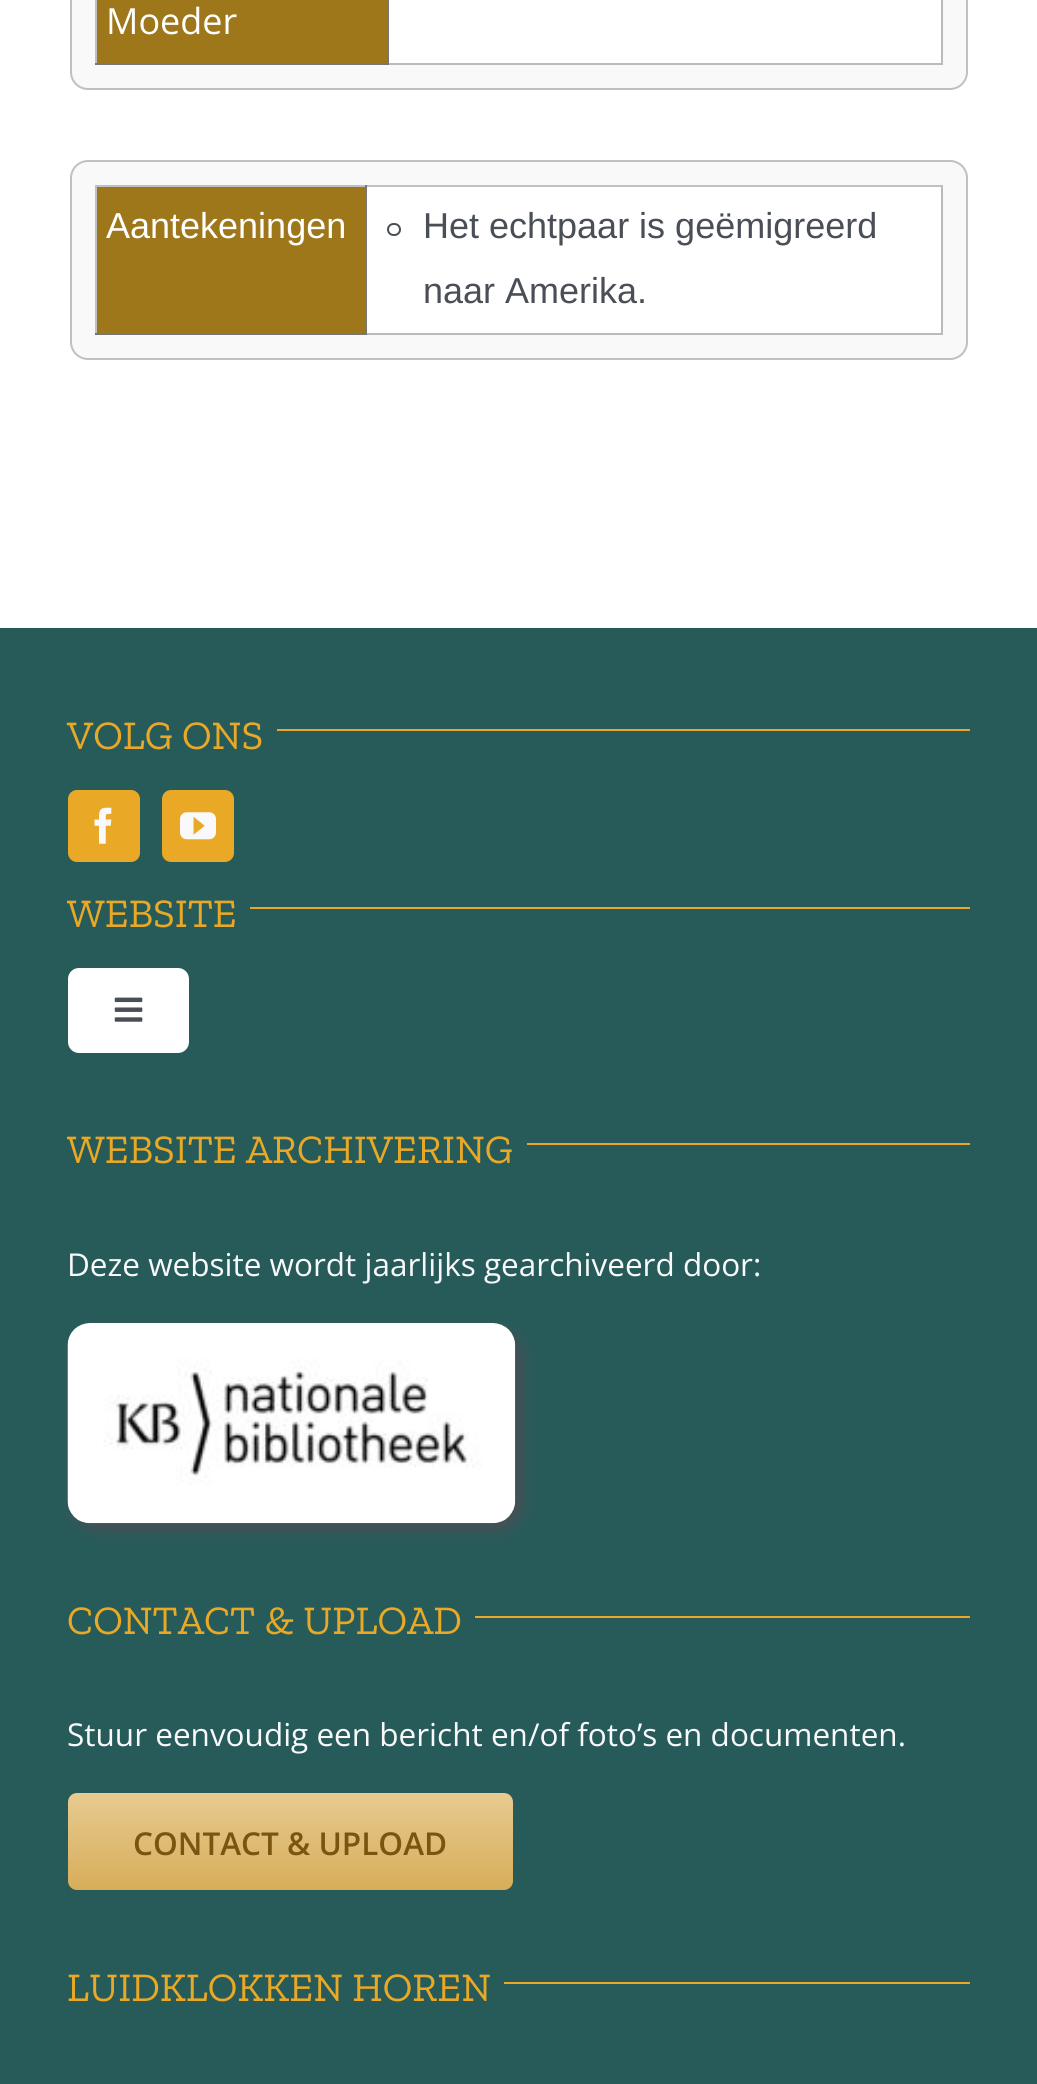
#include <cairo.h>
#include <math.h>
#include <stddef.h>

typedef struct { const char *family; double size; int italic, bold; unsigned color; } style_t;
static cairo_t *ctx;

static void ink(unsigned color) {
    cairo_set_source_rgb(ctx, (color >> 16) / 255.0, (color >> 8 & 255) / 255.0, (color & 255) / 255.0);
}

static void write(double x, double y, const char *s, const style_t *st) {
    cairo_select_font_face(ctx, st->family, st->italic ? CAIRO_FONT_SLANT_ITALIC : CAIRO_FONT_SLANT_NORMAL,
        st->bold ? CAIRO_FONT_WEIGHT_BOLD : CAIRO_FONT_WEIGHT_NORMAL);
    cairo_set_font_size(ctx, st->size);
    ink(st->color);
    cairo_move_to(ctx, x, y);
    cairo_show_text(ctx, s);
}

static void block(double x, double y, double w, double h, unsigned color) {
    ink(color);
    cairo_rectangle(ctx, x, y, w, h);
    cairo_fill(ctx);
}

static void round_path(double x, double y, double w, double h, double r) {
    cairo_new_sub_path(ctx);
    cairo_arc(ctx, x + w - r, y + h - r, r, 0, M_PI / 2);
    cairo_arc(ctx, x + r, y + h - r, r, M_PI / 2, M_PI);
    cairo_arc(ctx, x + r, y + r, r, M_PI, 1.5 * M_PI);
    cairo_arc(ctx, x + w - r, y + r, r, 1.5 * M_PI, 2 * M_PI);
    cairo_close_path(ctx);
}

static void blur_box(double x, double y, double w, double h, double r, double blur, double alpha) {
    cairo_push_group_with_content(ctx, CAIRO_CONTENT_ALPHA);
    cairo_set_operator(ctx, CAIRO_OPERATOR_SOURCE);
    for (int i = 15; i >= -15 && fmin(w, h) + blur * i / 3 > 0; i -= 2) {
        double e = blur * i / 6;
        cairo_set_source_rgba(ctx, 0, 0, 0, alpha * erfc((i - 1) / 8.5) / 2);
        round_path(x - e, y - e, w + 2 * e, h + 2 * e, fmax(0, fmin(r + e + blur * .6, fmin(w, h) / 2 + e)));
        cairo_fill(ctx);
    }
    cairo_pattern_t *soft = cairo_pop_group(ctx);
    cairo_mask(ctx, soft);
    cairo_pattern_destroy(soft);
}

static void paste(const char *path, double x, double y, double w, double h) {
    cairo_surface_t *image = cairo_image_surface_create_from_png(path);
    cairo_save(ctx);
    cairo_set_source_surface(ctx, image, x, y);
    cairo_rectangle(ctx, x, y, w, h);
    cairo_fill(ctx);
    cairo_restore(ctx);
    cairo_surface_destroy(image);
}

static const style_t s1 = {"Open Sans", 36, 0, 0, 0xffffff};
static const style_t s2 = {"Liberation Sans", 36, 0, 0, 0xffffff};
static const style_t s3 = {"Liberation Sans", 36, 0, 0, 0x4a4e57};
static const style_t s4 = {"Zilla Slab", 40.5, 0, 0, 0xe9a825};
static const style_t s5 = {"Open Sans", 31.5, 0, 0, 0xf9f9fb};
static const style_t s6 = {"Open Sans SemiBold", 31.5, 0, 0, 0x785510};

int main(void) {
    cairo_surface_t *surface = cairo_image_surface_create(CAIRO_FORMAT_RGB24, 1037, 2084);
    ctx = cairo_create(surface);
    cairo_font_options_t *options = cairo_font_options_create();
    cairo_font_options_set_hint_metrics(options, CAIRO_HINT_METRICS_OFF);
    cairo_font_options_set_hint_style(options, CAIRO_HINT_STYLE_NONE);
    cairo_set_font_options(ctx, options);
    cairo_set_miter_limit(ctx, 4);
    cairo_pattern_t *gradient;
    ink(0xffffff);
    cairo_paint(ctx);
    ink(0xf9f9f9);
    round_path(71, -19, 896, 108, 17);
    cairo_fill_preserve(ctx);
    ink(0xc0c0c0);
    cairo_stroke(ctx);
    block(389, 0, 552, 63, 0xffffff);
    block(95, 0, 2, 65, 0xc0c0c0);
    block(97, 0, 290, 63, 0x9e771b);
    block(941, 0, 2, 65, 0xbbbbbb);
    block(387, 63, 556, 2, 0xbbbbbb);
    block(387, 0, 2, 65, 0x777777);
    block(95, 63, 294, 2, 0x777777);
    write(106, 34, "Moeder", &s1);
    ink(0xf9f9f9);
    round_path(71, 161, 896, 198, 17);
    cairo_fill_preserve(ctx);
    ink(0xc0c0c0);
    cairo_stroke(ctx);
    block(367, 187, 574, 146, 0xffffff);
    block(95, 185, 848, 2, 0xc0c0c0);
    block(95, 185, 2, 150, 0xc0c0c0);
    block(97, 187, 268, 146, 0x9e771b);
    block(941, 185, 2, 150, 0xbbbbbb);
    block(365, 333, 578, 2, 0xbbbbbb);
    block(365, 185, 2, 150, 0x777777);
    block(95, 333, 272, 2, 0x777777);
    write(106, 238, "Aantekeningen", &s2);
    round_path(388, 224, 12, 11, 5.5);
    ink(0x4a4e57);
    cairo_stroke(ctx);
    write(423, 238, "Het echtpaar is geëmigreerd", &s3);
    write(423, 303, "naar Amerika.", &s3);
    block(0, 628, 1037, 1456, 0x265b5a);
    write(67, 749, "VOLG ONS", &s4);
    block(277, 729, 693, 2, 0xe9a825);
    round_path(68, 790, 72, 72, 9);
    cairo_fill(ctx);
    paste("pic1.png", 94, 807, 18, 37);
    round_path(162, 790, 72, 72, 9);
    cairo_fill(ctx);
    paste("pic2.png", 180, 812, 36, 28);
    write(67, 927, "WEBSITE", &s4);
    block(250, 907, 720, 2, 0xe9a825);
    ink(0xffffff);
    round_path(68, 968, 121, 85, 11);
    cairo_fill(ctx);
    paste("pic3.png", 114, 997, 29, 25);
    write(67, 1163, "WEBSITE ARCHIVERING", &s4);
    block(527, 1143, 443, 2, 0xe9a825);
    write(67, 1276, "Deze website wordt jaarlijks gearchiveerd door:", &s5);
    ink(0x4a4e57);
    blur_box(74, 1330, 448, 200, 23, 8, 1);
    paste("pic4.png", 67, 1323, 449, 201);
    write(67, 1634, "CONTACT & UPLOAD", &s4);
    block(475, 1616, 495, 2, 0xe9a825);
    write(67, 1746, "Stuur eenvoudig een bericht en/of foto’s en documenten.", &s5);
    gradient = cairo_pattern_create_linear(290, 1793, 290, 1890);
    cairo_pattern_add_color_stop_rgba(gradient, 0, 0.91, 0.796, 0.565, 1);
    cairo_pattern_add_color_stop_rgba(gradient, 1, 0.839, 0.678, 0.353, 1);
    cairo_set_source(ctx, gradient);
    cairo_pattern_destroy(gradient);
    round_path(68, 1793, 445, 97, 9);
    cairo_fill(ctx);
    write(133, 1855, "CONTACT & UPLOAD", &s6);
    write(67, 2001, "LUIDKLOKKEN HOREN", &s4);
    block(504, 1982, 466, 2, 0xe9a825);
    cairo_surface_write_to_png(surface, "screenshot.png");
    cairo_font_options_destroy(options);
    cairo_destroy(ctx);
    cairo_surface_destroy(surface);
    return 0;
}
